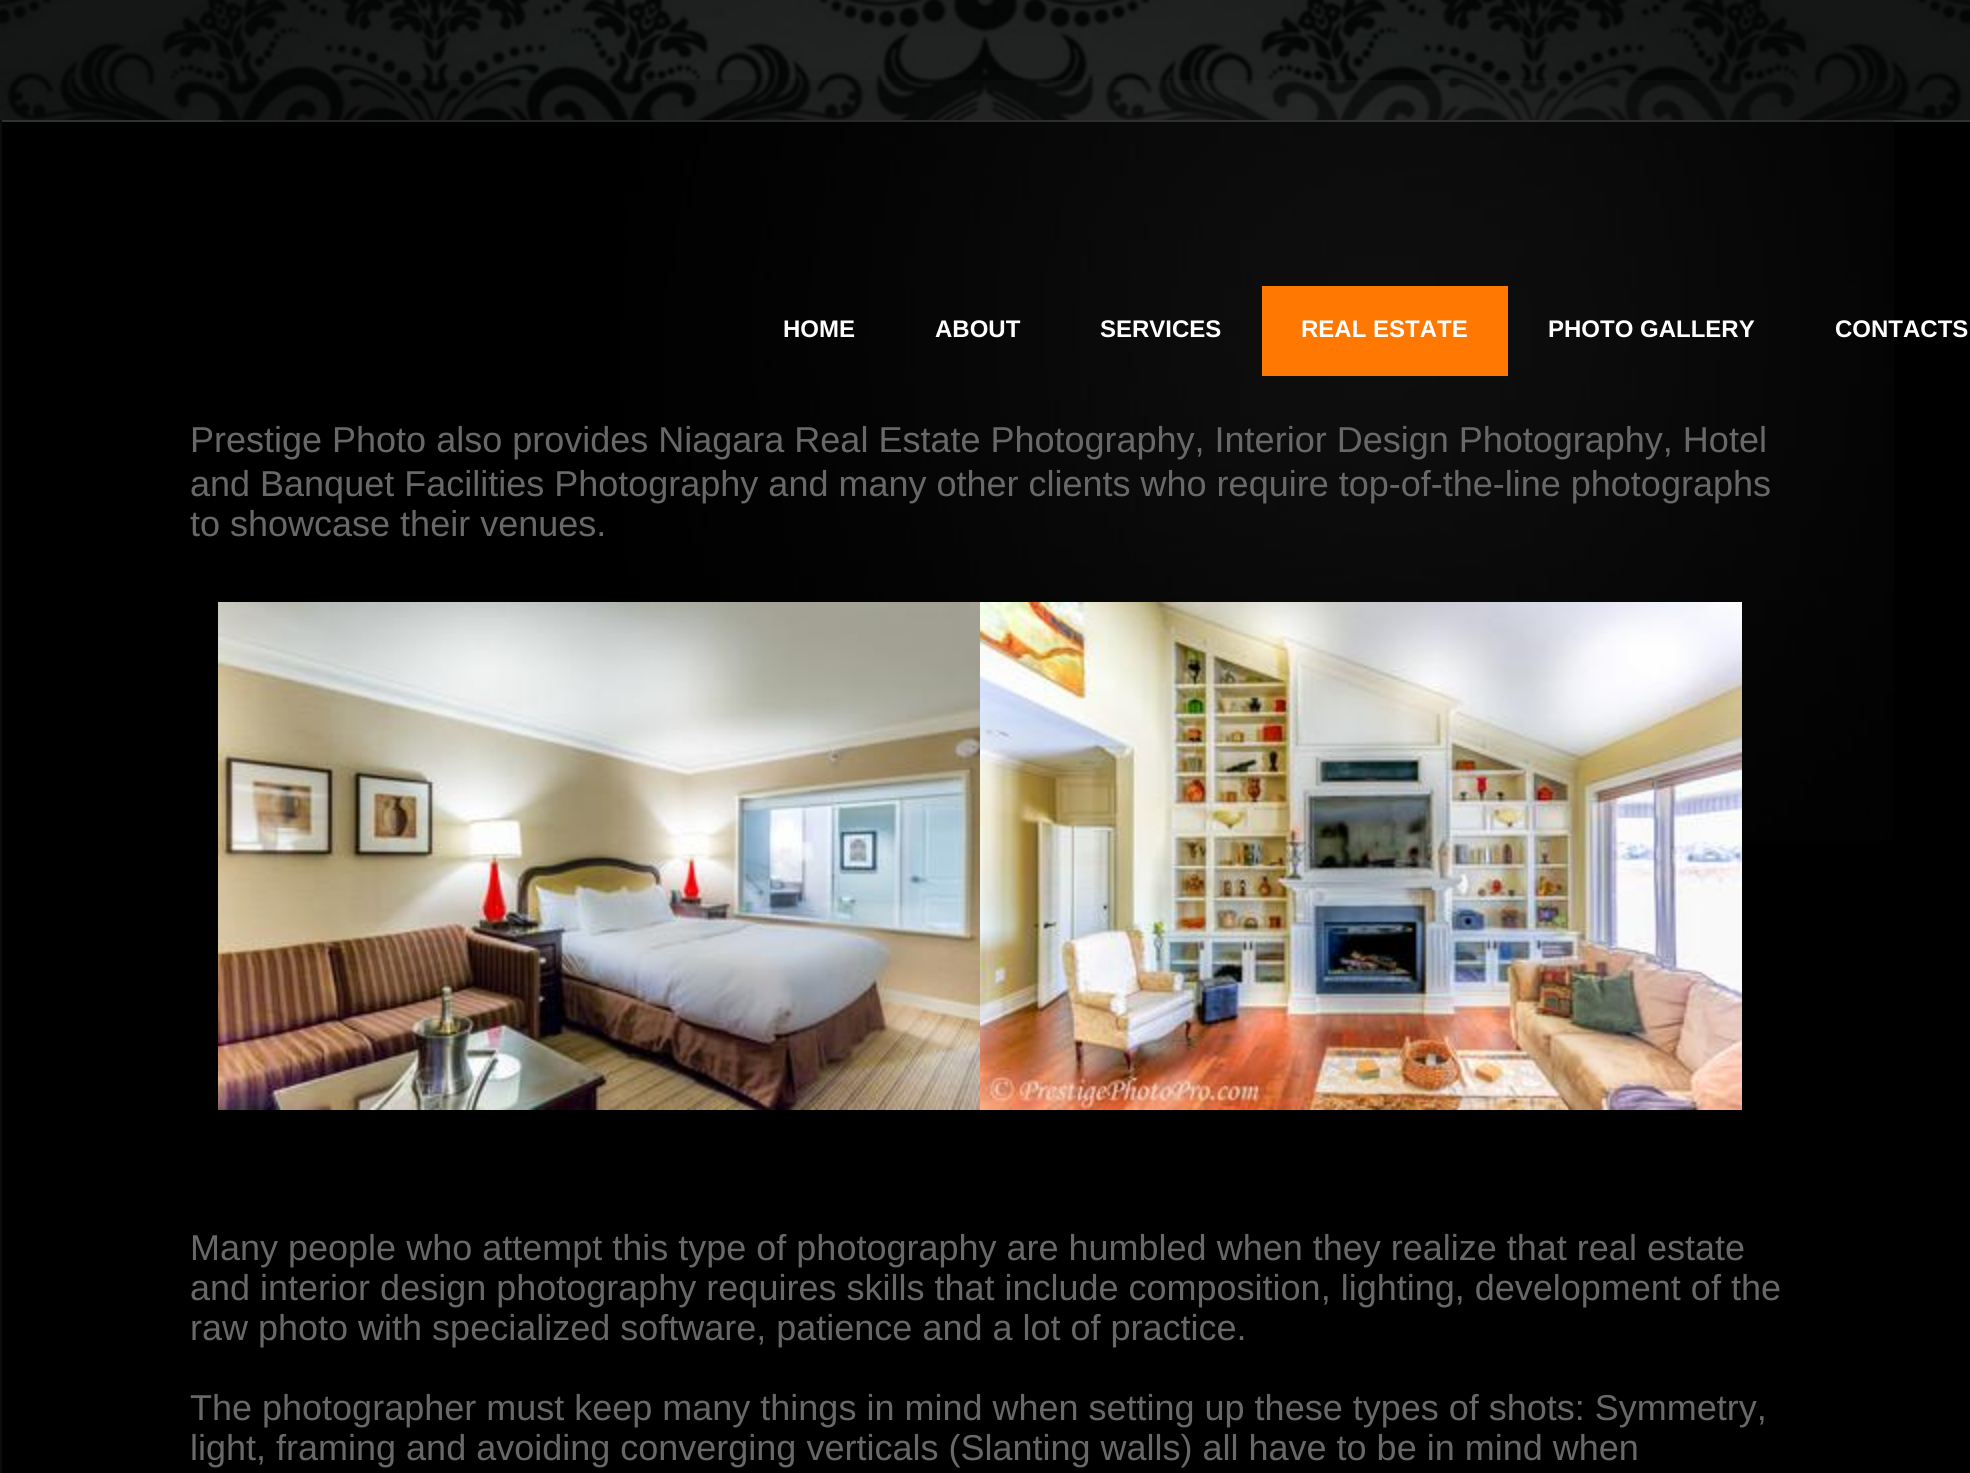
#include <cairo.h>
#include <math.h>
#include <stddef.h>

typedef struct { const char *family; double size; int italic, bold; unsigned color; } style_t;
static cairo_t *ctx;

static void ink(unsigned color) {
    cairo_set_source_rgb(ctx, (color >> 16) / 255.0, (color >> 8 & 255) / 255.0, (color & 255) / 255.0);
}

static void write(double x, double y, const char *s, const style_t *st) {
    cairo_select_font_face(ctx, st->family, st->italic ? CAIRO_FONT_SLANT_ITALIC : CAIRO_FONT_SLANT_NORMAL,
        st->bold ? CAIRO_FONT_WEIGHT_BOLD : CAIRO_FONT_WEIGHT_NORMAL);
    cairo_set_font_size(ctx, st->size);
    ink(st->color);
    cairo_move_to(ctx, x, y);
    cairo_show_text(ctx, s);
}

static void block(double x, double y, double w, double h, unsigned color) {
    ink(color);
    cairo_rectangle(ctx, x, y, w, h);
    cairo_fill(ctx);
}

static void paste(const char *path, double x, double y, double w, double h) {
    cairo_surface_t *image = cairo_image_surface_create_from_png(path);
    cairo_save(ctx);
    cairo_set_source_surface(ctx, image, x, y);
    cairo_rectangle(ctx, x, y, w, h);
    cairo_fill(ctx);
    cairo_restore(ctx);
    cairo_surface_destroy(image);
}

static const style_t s1 = {"Liberation Sans", 24, 0, 1, 0xffffff};
static const style_t s2 = {"Liberation Sans", 36, 0, 0, 0x686868};

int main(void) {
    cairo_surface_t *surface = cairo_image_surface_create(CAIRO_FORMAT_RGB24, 1970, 1473);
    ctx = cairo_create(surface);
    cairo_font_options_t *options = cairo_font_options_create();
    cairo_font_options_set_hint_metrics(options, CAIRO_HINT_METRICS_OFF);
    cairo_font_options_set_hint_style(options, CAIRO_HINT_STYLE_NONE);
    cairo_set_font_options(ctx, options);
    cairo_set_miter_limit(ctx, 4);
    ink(0xffffff);
    cairo_paint(ctx);
    paste("pic1.png", 0, 0, 1970, 120);
    block(2, 122, 1968, 1351, 0x000000);
    block(0, 120, 1970, 2, 0x313131);
    block(0, 120, 2, 1353, 0x0c0c0c);
    paste("pic2.png", 222, 80, 1672, 761);
    write(783, 337, "HOME", &s1);
    write(935, 337, "ABOUT", &s1);
    write(1100, 337, "SERVICES", &s1);
    block(1262, 286, 246, 90, 0xfe7802);
    write(1301, 337, "REAL ESTATE", &s1);
    write(1548, 337, "PHOTO GALLERY", &s1);
    write(1835, 337, "CONTACTS", &s1);
    write(190, 452, "Prestige Photo also provides Niagara Real Estate Photography, Interior Design Photography, Hotel", &s2);
    write(190, 496, "and Banquet Facilities Photography and many other clients who require top-of-the-line photographs", &s2);
    write(190, 536, "to showcase their venues.", &s2);
    write(190, 1260, "Many people who attempt this type of photography are humbled when they realize that real estate", &s2);
    write(190, 1300, "and interior design photography requires skills that include composition, lighting, development of the", &s2);
    write(190, 1340, "raw photo with specialized software, patience and a lot of practice.", &s2);
    write(190, 1420, "The photographer must keep many things in mind when setting up these types of shots: Symmetry,", &s2);
    write(190, 1460, "light, framing and avoiding converging verticals (Slanting walls) all have to be in mind when", &s2);
    paste("pic3.png", 218, 602, 762, 508);
    paste("pic4.png", 980, 602, 762, 508);
    cairo_surface_write_to_png(surface, "screenshot.png");
    cairo_font_options_destroy(options);
    cairo_destroy(ctx);
    cairo_surface_destroy(surface);
    return 0;
}
